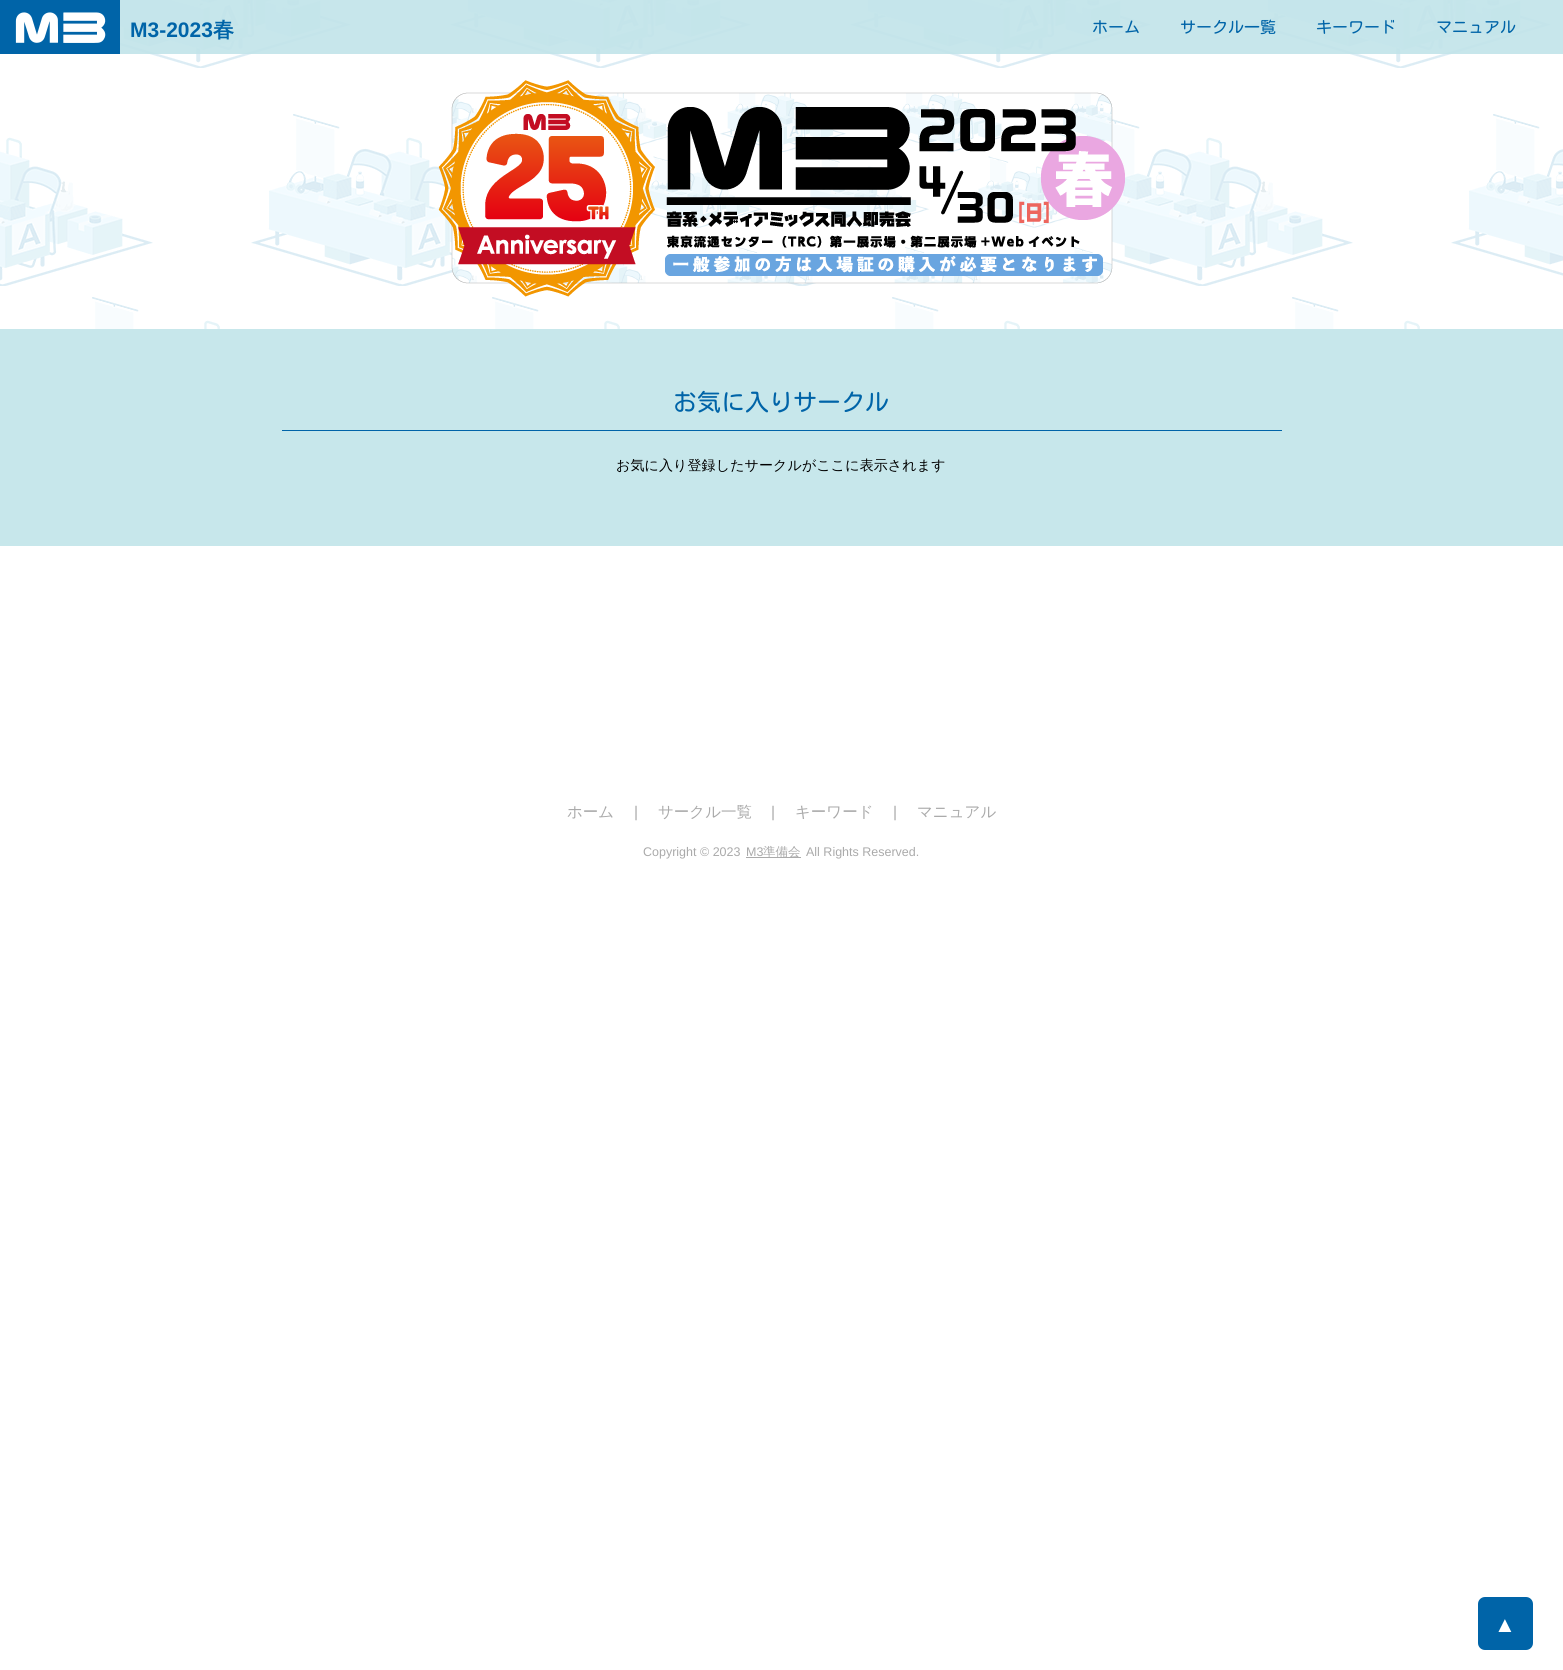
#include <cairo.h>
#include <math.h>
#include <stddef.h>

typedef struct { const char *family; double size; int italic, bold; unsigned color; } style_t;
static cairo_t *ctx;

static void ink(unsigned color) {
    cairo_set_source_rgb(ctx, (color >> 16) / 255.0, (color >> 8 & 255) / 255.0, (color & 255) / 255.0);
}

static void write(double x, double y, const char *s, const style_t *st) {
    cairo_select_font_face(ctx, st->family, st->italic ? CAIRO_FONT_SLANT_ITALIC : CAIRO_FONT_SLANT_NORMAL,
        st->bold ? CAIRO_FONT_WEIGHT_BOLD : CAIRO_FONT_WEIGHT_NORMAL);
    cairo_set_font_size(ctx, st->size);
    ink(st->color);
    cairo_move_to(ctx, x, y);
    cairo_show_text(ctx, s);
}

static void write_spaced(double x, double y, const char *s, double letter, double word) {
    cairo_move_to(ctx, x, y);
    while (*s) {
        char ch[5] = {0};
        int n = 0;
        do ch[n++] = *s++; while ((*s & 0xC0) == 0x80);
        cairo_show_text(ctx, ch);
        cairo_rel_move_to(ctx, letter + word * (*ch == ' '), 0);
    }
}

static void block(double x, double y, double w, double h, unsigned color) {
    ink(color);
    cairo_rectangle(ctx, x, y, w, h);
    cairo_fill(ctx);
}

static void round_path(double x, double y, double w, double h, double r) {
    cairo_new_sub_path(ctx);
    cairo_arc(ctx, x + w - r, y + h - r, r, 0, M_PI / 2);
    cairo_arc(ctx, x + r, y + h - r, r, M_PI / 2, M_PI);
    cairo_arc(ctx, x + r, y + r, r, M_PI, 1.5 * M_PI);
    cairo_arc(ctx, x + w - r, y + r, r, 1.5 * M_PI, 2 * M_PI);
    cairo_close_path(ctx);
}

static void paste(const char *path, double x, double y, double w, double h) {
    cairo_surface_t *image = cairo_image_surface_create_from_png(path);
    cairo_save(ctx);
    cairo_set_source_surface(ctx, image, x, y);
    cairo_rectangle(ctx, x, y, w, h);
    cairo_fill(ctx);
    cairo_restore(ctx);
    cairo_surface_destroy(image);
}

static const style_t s1 = {"Liberation Sans", 21, 0, 1, 0x0064a8};
static const style_t s2 = {"WenQuanYi Zen Hei", 21, 0, 1, 0x0064a8};
static const style_t s3 = {"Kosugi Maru", 16, 0, 0, 0x0064a8};
static const style_t s4 = {"Kosugi Maru", 24, 0, 0, 0x0064a8};
static const style_t s5 = {"WenQuanYi Zen Hei Medium", 15.5, 0, 0, 0xaaaaaa};
static const style_t s6 = {"Liberation Sans", 15.5, 0, 0, 0xaaaaaa};
static const style_t s7 = {"Liberation Sans", 12.5, 0, 0, 0xaaaaaa};
static const style_t s8 = {"WenQuanYi Zen Hei Medium", 12.5, 0, 0, 0xaaaaaa};

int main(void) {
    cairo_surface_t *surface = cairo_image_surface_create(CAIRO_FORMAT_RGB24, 1563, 1670);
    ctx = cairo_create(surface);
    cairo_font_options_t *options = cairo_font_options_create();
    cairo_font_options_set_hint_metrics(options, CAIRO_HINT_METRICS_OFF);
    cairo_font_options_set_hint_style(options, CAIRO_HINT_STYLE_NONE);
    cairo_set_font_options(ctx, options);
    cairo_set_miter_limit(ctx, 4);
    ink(0xffffff);
    cairo_paint(ctx);
    paste("pic2.png", 0, 0, 1563, 329);
    cairo_set_source_rgba(ctx, 0.757, 0.894, 0.914, 0.9);
    cairo_rectangle(ctx, 120, 0, 1443, 54);
    cairo_fill(ctx);
    paste("pic1.png", 0, 0, 120, 54);
    write(130, 37, "M3-2023", &s1);
    write(213, 37, "春", &s2);
    write(1092, 33, "ホーム", &s3);
    write(1180, 33, "サークル一覧", &s3);
    write(1316, 33, "キーワード", &s3);
    write(1436, 33, "マニュアル", &s3);
    paste("pic3.png", 438, 80, 687, 217);
    block(0, 329, 1563, 217, 0xc7e7eb);
    block(282, 430, 1000, 1, 0x0064a8);
    write(673, 411, "お気に入りサークル", &s4);
    cairo_select_font_face(ctx, "WenQuanYi Zen Hei Medium", CAIRO_FONT_SLANT_NORMAL, CAIRO_FONT_WEIGHT_NORMAL);
    cairo_set_font_size(ctx, 14);
    ink(0x000000);
    write_spaced(616, 470, "お気に入り登録したサークルがここに表示されます", 0.1, 0);
    write(567, 817, "ホーム", &s5);
    write(634, 817, "|", &s6);
    write(658, 817, "サークル一覧", &s5);
    write(771, 817, "|", &s6);
    write(795, 817, "キーワード", &s5);
    write(893, 817, "|", &s6);
    write(917, 817, "マニュアル", &s5);
    write(643, 856, "Copyright © 2023", &s7);
    write(746, 856, "M3", &s7);
    block(746, 857, 55, 1, 0xaaaaaa);
    write(763, 856, "準備会", &s8);
    write(806, 856, "All Rights Reserved.", &s7);
    ink(0x0064a8);
    round_path(1478, 1597, 55, 53, 7);
    cairo_fill(ctx);
    cairo_set_font_size(ctx, 22);
    ink(0xffffff);
    write_spaced(1494, 1632, "▲", 1, 0);
    cairo_surface_write_to_png(surface, "screenshot.png");
    cairo_font_options_destroy(options);
    cairo_destroy(ctx);
    cairo_surface_destroy(surface);
    return 0;
}
